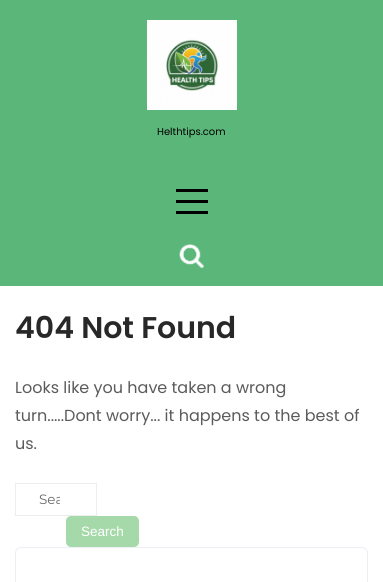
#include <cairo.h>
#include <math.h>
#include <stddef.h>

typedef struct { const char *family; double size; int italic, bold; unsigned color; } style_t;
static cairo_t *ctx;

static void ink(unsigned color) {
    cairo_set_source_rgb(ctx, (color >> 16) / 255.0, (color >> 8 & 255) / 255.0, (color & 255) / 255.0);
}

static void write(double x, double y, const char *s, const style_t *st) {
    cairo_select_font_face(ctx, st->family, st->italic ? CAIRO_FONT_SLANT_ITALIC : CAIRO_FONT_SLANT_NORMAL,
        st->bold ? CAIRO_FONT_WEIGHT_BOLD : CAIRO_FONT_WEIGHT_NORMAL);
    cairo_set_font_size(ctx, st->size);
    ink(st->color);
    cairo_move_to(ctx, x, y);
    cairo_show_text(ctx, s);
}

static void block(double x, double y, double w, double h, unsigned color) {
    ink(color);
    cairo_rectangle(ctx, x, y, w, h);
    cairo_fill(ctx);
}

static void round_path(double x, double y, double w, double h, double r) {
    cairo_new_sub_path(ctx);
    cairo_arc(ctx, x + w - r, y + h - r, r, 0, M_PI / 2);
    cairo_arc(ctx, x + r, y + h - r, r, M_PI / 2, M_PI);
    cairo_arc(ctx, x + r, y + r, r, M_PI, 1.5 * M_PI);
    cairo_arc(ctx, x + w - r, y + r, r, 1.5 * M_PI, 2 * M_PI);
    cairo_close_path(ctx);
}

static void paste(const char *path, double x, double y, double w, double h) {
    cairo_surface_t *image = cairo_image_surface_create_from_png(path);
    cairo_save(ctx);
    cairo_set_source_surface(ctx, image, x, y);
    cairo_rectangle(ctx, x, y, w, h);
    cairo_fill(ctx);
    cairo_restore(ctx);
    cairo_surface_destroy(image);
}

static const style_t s1 = {"Poppins", 10, 0, 0, 0x000000};
static const style_t s2 = {"Poppins SemiBold", 30, 0, 0, 0x282828};
static const style_t s3 = {"Poppins", 16, 0, 0, 0x5b5b5b};
static const style_t s4 = {"Montserrat", 13.5, 0, 0, 0x686868};
static const style_t s5 = {"Liberation Sans", 13.5, 0, 0, 0xffffff};

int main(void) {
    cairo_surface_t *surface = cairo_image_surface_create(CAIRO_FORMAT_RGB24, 383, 582);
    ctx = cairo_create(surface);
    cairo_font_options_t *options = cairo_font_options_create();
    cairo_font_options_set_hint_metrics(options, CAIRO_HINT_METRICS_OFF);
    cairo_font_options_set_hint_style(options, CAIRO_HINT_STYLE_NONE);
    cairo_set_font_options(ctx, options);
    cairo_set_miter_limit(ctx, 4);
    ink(0xffffff);
    cairo_paint(ctx);
    block(0, 0, 383, 286, 0x5bb679);
    paste("pic1.png", 147, 20, 90, 90);
    write(157, 135, "Helthtips.com", &s1);
    block(176, 189, 32, 3, 0x000000);
    block(176, 200, 32, 3, 0x000000);
    block(176, 211, 32, 3, 0x000000);
    paste("pic2.png", 179, 244, 25, 24);
    write(15, 338, "404 Not Found", &s2);
    write(15, 393, "Looks like you have taken a wrong", &s3);
    write(15, 421, "turn.....Dont worry... it happens to the best of", &s3);
    write(15, 449, "us.", &s3);
    cairo_rectangle(ctx, 15.5, 483.5, 81, 32);
    ink(0xeeeeee);
    cairo_set_line_width(ctx, 1);
    cairo_stroke(ctx);
    cairo_save(ctx);
    cairo_rectangle(ctx, 39, 491, 21, 16);
    cairo_clip(ctx);
    write(39, 504, "Sea", &s4);
    cairo_restore(ctx);
    ink(0xa6d9a9);
    round_path(66, 516, 73, 31, 5);
    cairo_fill(ctx);
    write(81, 536, "Search", &s5);
    round_path(15.5, 547.5, 352, 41, 5.5);
    ink(0xeeeff5);
    cairo_stroke(ctx);
    cairo_surface_write_to_png(surface, "screenshot.png");
    cairo_font_options_destroy(options);
    cairo_destroy(ctx);
    cairo_surface_destroy(surface);
    return 0;
}
